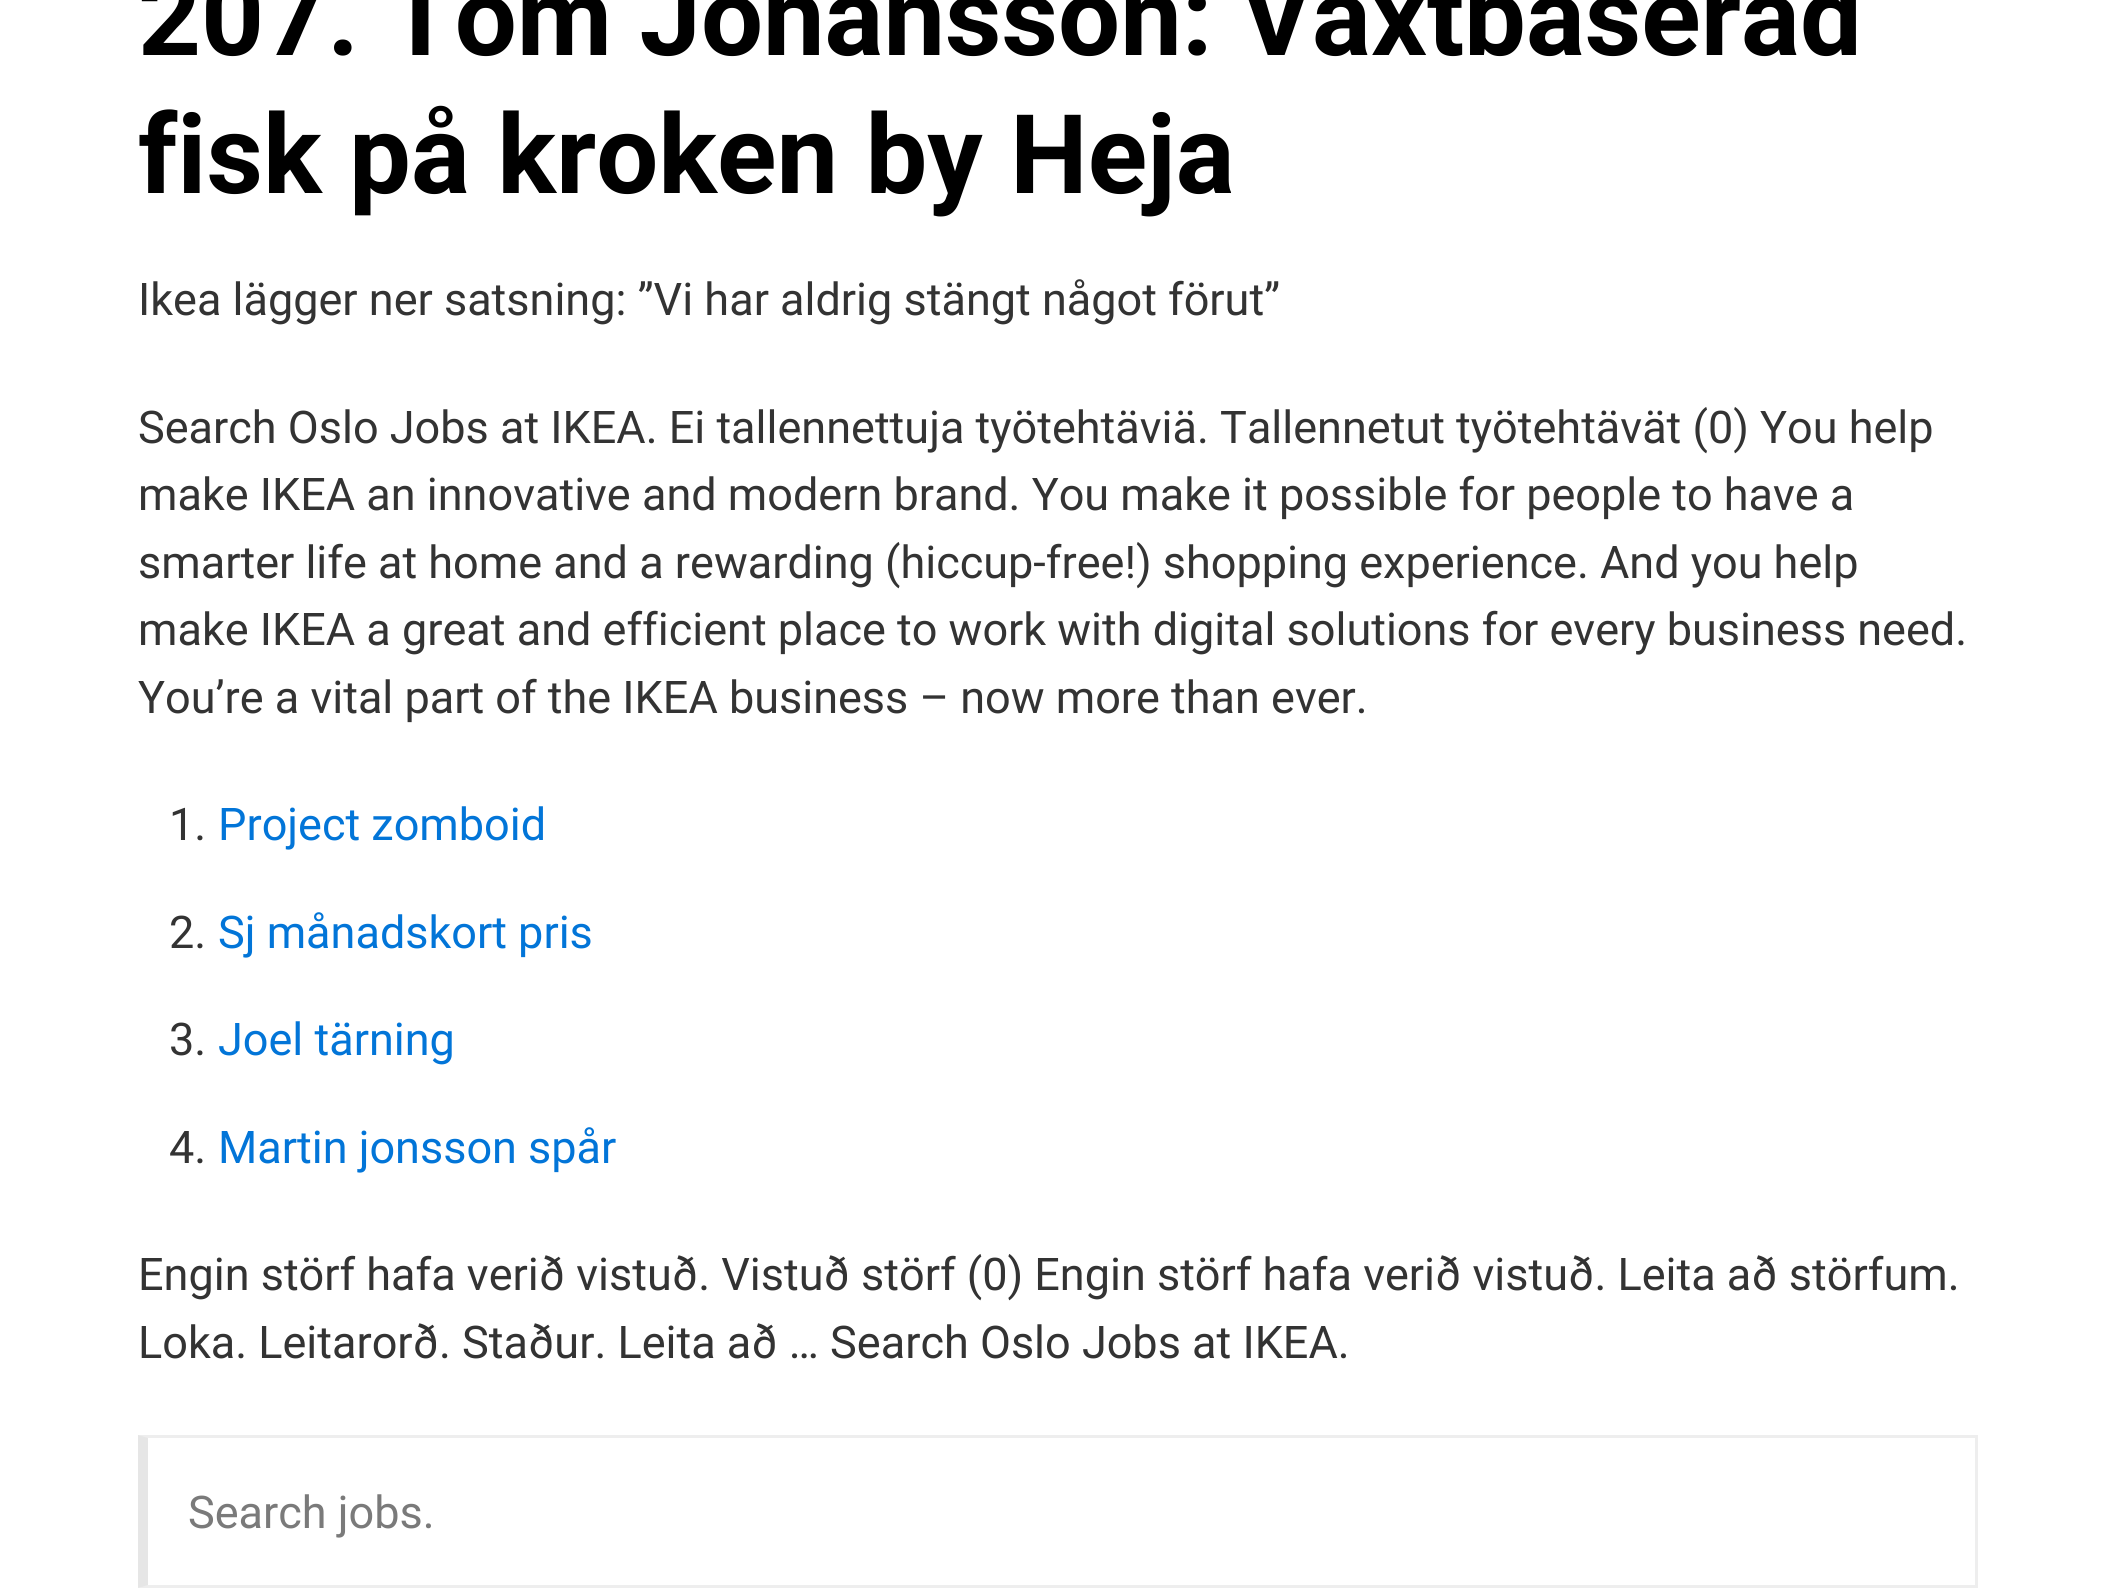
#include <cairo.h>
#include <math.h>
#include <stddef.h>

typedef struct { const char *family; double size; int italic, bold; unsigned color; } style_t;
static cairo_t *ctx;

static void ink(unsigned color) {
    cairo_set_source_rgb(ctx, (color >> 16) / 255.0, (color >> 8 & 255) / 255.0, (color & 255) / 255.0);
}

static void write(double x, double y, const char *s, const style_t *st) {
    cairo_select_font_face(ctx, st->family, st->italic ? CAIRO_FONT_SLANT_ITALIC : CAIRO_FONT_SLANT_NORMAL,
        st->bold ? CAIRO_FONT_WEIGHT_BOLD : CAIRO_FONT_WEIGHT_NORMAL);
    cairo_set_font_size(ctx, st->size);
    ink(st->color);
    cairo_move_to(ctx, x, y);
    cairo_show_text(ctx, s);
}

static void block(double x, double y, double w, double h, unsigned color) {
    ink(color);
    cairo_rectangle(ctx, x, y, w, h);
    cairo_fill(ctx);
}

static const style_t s1 = {"Roboto", 110, 0, 1, 0x000000};
static const style_t s2 = {"Roboto", 45, 0, 0, 0x333333};
static const style_t s3 = {"Roboto", 45, 0, 0, 0x0275d8};
static const style_t s4 = {"Roboto", 45, 0, 0, 0x7a7a7a};

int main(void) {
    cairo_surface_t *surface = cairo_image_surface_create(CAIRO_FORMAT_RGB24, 2113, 1595);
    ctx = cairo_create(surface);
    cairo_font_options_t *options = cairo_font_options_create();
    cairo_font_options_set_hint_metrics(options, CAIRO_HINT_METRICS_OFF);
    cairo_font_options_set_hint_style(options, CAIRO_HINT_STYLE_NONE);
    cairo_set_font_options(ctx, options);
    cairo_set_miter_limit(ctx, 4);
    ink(0xffffff);
    cairo_paint(ctx);
    write(138, 55, "207. Tom Johansson: Växtbaserad", &s1);
    write(138, 193, "fisk på kroken by Heja", &s1);
    write(138, 315, "Ikea lägger ner satsning: ”Vi har aldrig stängt något förut”", &s2);
    write(138, 443, "Search Oslo Jobs at IKEA. Ei tallennettuja työtehtäviä. Tallennetut työtehtävät (0) You help", &s2);
    write(138, 510, "make IKEA an innovative and modern brand. You make it possible for people to have a", &s2);
    write(138, 578, "smarter life at home and a rewarding (hiccup-free!) shopping experience. And you help", &s2);
    write(138, 645, "make IKEA a great and efficient place to work with digital solutions for every business need.", &s2);
    write(138, 713, "You’re a vital part of the IKEA business – now more than ever.", &s2);
    write(169, 840, "1.", &s2);
    write(218, 840, "Project zomboid", &s3);
    write(169, 948, "2.", &s2);
    write(218, 948, "Sj månadskort pris", &s3);
    write(169, 1055, "3.", &s2);
    write(218, 1055, "Joel tärning", &s3);
    write(169, 1163, "4.", &s2);
    write(218, 1163, "Martin jonsson spår", &s3);
    write(138, 1290, "Engin störf hafa verið vistuð. Vistuð störf (0) Engin störf hafa verið vistuð. Leita að störfum.", &s2);
    write(138, 1358, "Loka. Leitarorð. Staður. Leita að … Search Oslo Jobs at IKEA.", &s2);
    ink(0xeeeeee);
    cairo_new_path(ctx);
    cairo_move_to(ctx, 138, 1435);
    cairo_line_to(ctx, 1978, 1435);
    cairo_line_to(ctx, 1975, 1438);
    cairo_line_to(ctx, 148, 1438);
    cairo_close_path(ctx);
    cairo_fill(ctx);
    block(1975, 1435, 3, 153, 0xeeeeee);
    cairo_new_path(ctx);
    cairo_move_to(ctx, 1978, 1588);
    cairo_line_to(ctx, 138, 1588);
    cairo_line_to(ctx, 148, 1585);
    cairo_line_to(ctx, 1975, 1585);
    cairo_close_path(ctx);
    cairo_fill(ctx);
    cairo_set_source_rgba(ctx, 0, 0, 0, 0.1);
    cairo_new_path(ctx);
    cairo_move_to(ctx, 138, 1588);
    cairo_line_to(ctx, 138, 1435);
    cairo_line_to(ctx, 148, 1438);
    cairo_line_to(ctx, 148, 1585);
    cairo_close_path(ctx);
    cairo_fill(ctx);
    write(188, 1528, "Search jobs.", &s4);
    cairo_surface_write_to_png(surface, "screenshot.png");
    cairo_font_options_destroy(options);
    cairo_destroy(ctx);
    cairo_surface_destroy(surface);
    return 0;
}
